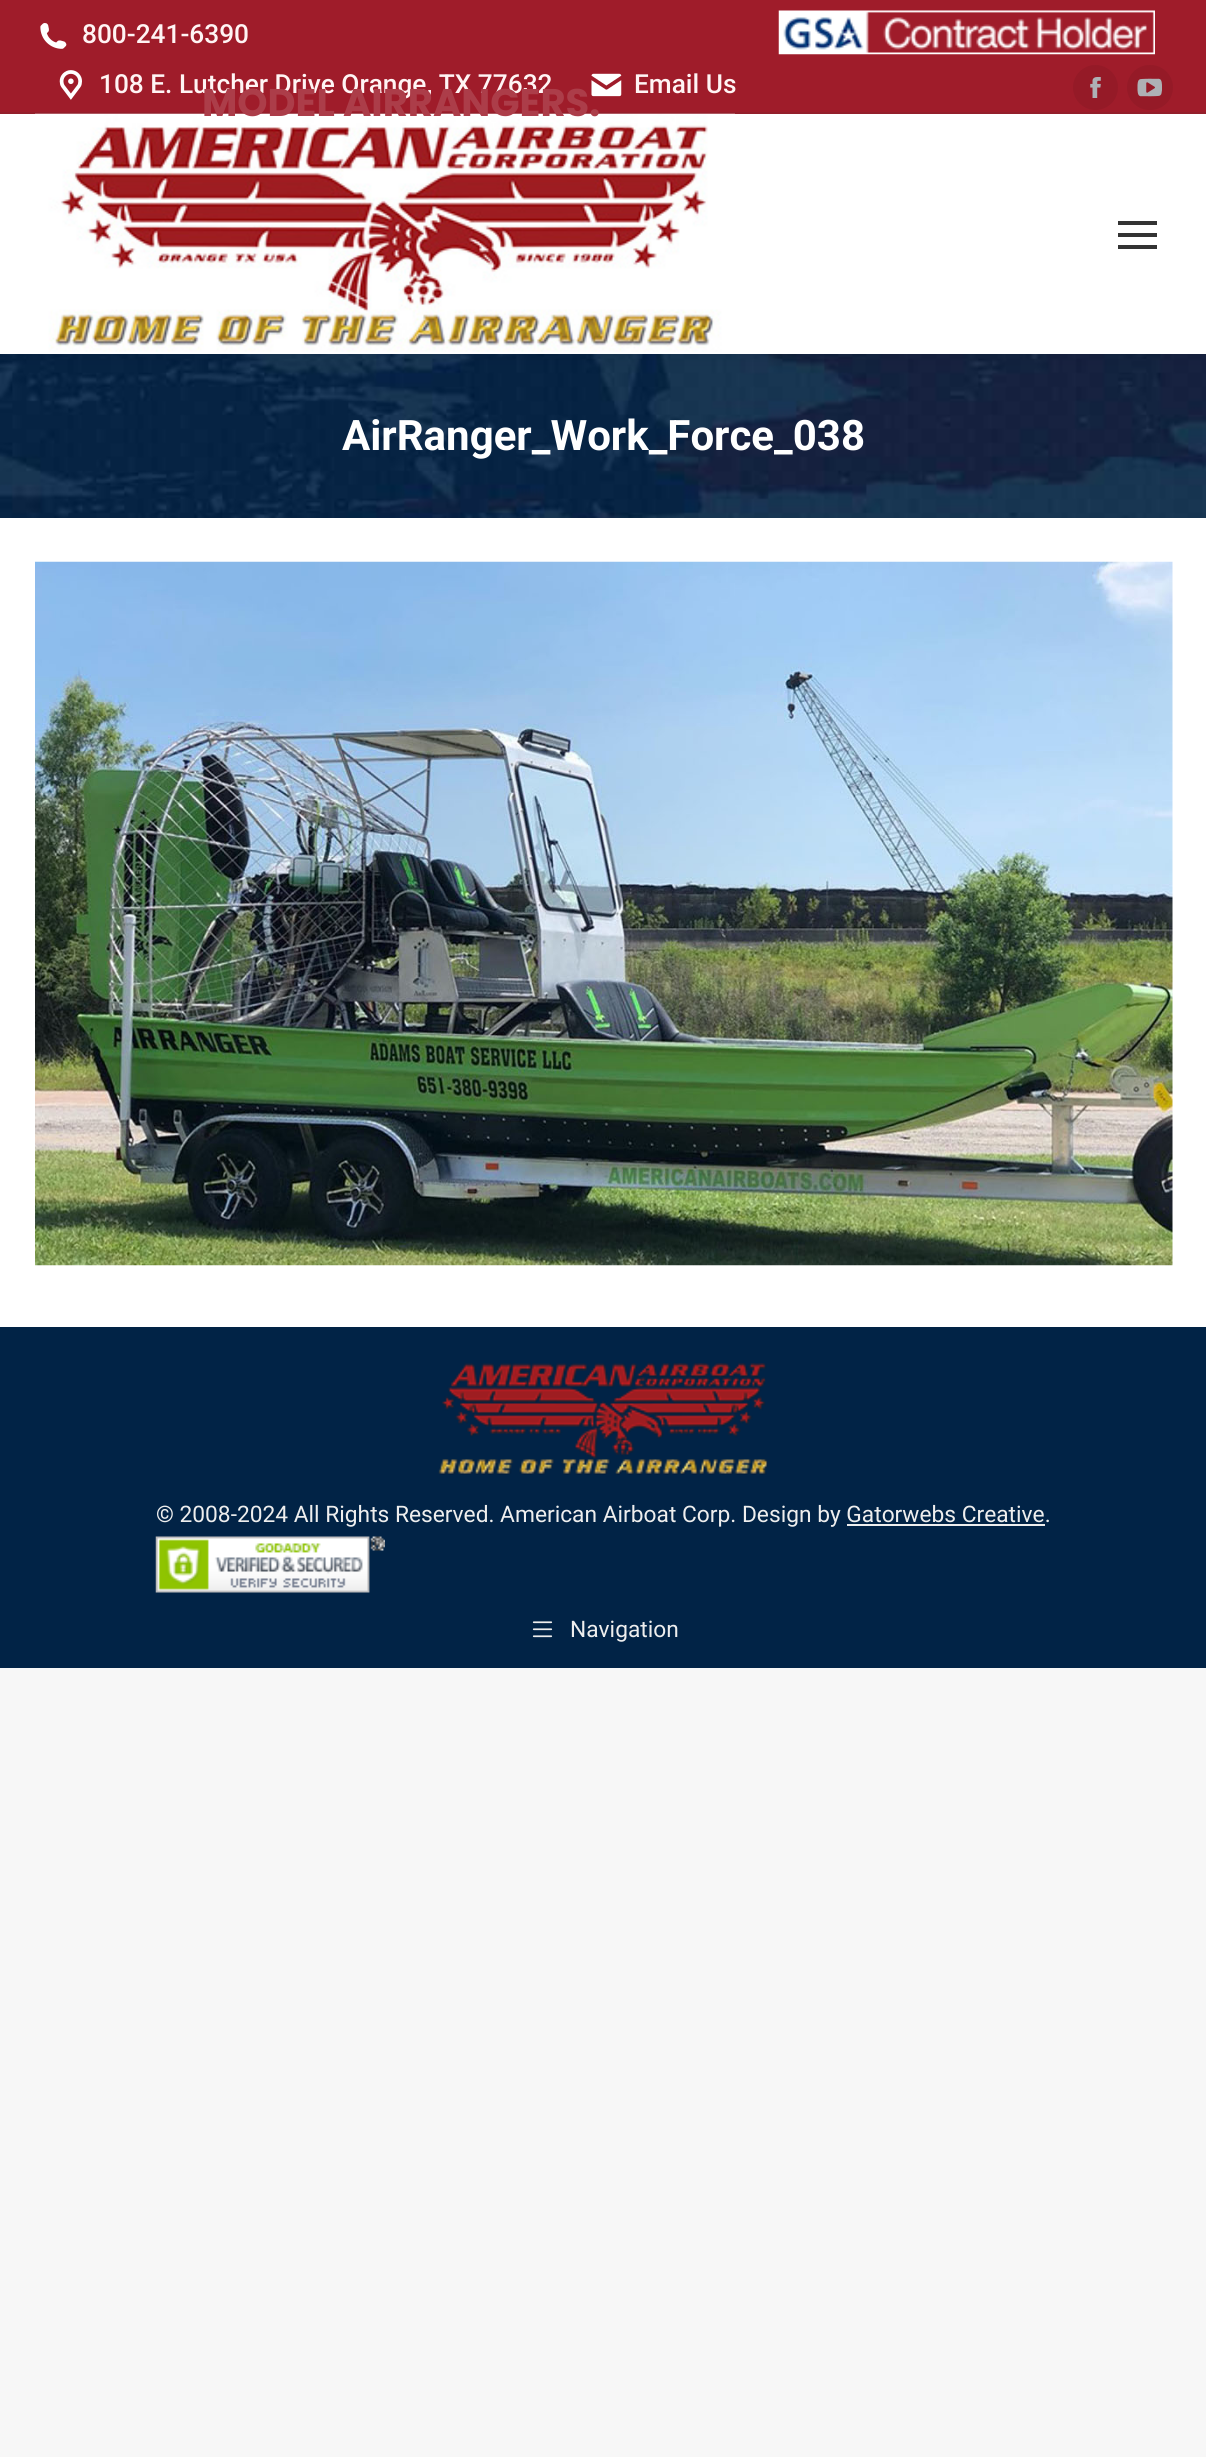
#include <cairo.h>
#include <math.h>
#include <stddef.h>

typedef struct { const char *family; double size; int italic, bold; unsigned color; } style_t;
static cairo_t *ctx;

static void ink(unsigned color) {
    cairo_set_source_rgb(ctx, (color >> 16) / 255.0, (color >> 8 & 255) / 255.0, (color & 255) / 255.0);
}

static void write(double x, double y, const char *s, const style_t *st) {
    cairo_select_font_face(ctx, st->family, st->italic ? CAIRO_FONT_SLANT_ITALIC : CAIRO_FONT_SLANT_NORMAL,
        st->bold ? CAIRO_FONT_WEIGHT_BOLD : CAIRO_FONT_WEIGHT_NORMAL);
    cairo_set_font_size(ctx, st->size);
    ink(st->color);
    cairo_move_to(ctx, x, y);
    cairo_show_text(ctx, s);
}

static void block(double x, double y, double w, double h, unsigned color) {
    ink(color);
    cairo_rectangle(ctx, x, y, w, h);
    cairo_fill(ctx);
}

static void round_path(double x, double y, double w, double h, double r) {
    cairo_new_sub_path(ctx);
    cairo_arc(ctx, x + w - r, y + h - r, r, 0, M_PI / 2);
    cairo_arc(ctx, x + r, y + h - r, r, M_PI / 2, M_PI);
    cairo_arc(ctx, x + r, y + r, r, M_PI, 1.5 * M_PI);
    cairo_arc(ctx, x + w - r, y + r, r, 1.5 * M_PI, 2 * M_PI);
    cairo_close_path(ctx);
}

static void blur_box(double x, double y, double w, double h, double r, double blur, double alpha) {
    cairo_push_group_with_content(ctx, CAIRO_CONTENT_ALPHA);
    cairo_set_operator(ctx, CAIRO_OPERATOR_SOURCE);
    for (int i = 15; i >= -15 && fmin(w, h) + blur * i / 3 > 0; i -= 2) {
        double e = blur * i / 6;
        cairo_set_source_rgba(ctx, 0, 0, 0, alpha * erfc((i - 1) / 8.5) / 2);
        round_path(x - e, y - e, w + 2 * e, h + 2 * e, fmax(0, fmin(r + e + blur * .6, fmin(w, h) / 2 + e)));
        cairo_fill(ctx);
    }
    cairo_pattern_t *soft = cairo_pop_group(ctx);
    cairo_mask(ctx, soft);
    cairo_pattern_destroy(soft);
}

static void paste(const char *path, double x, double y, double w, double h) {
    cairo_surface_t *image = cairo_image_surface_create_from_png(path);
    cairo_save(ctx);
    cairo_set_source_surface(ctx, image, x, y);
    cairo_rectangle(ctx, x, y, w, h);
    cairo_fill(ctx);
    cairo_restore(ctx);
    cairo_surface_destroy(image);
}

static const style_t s1 = {"Roboto Medium", 26.25, 0, 0, 0xfff4f4};
static const style_t s2 = {"Roboto", 42, 0, 1, 0xffffff};
static const style_t s3 = {"Roboto", 22.75, 0, 0, 0xeeeeee};
static const style_t s4 = {"Poppins", 38.5, 0, 1, 0xac3d49};

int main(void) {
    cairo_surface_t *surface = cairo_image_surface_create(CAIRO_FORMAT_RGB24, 1206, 2457);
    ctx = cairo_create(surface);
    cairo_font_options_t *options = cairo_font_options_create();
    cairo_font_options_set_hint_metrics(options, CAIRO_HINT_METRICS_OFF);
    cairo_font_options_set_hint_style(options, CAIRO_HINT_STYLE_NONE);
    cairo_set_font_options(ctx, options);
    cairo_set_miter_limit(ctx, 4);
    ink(0xf7f7f7);
    cairo_paint(ctx);
    block(0, 518, 1206, 809, 0xffffff);
    paste("pic8.png", 0, 354, 1206, 164);
    ink(0x000000);
    blur_box(-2, -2, 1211, 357, 0, 13, 0.07);
    block(0, 114, 1206, 240, 0xffffff);
    block(0, 0, 1206, 112, 0x9f1c2a);
    paste("pic1.png", 40, 23, 27, 26);
    write(82, 43, "800-241-6390", &s1);
    paste("pic2.png", 59, 70, 23, 30);
    write(99, 93, "108 E. Lutcher Drive Orange, TX 77632", &s1);
    paste("pic3.png", 591, 73, 31, 24);
    write(634, 93, "Email Us", &s1);
    paste("pic4.png", 778, 10, 377, 45);
    ink(0x951a27);
    cairo_arc(ctx, 1095.5, 87.5, 22.5, 0, 2 * M_PI);
    cairo_fill(ctx);
    paste("pic5.png", 1090, 77, 11, 21);
    round_path(1127, 65, 46, 45, 22.5);
    cairo_fill(ctx);
    paste("pic6.png", 1137, 78, 25, 19);
    block(0, 112, 1206, 2, 0x931f2b);
    paste("pic7.png", 35, 113, 700, 239);
    block(1118, 221, 39, 4, 0x333333);
    block(1118, 233, 39, 4, 0x333333);
    block(1118, 245, 39, 4, 0x333333);
    write(342, 450, "AirRanger_Work_Force_038", &s2);
    paste("pic9.png", 35, 561, 1138, 705);
    block(0, 1327, 1206, 341, 0x012346);
    paste("pic10.png", 438, 1363, 330, 112);
    write(156, 1522, "© 2008-2024 All Rights Reserved. American Airboat Corp. Design by Gatorwebs Creative.", &s3);
    block(847, 1524, 198, 2, 0xeeeeee);
    paste("pic11.png", 155, 1536, 230, 57);
    paste("pic12.png", 532, 1621, 21, 17);
    write(570, 1637, "Navigation", &s3);
    write(202, 116, "MODEL AIRRANGERS.", &s4);
    cairo_surface_write_to_png(surface, "screenshot.png");
    cairo_font_options_destroy(options);
    cairo_destroy(ctx);
    cairo_surface_destroy(surface);
    return 0;
}
